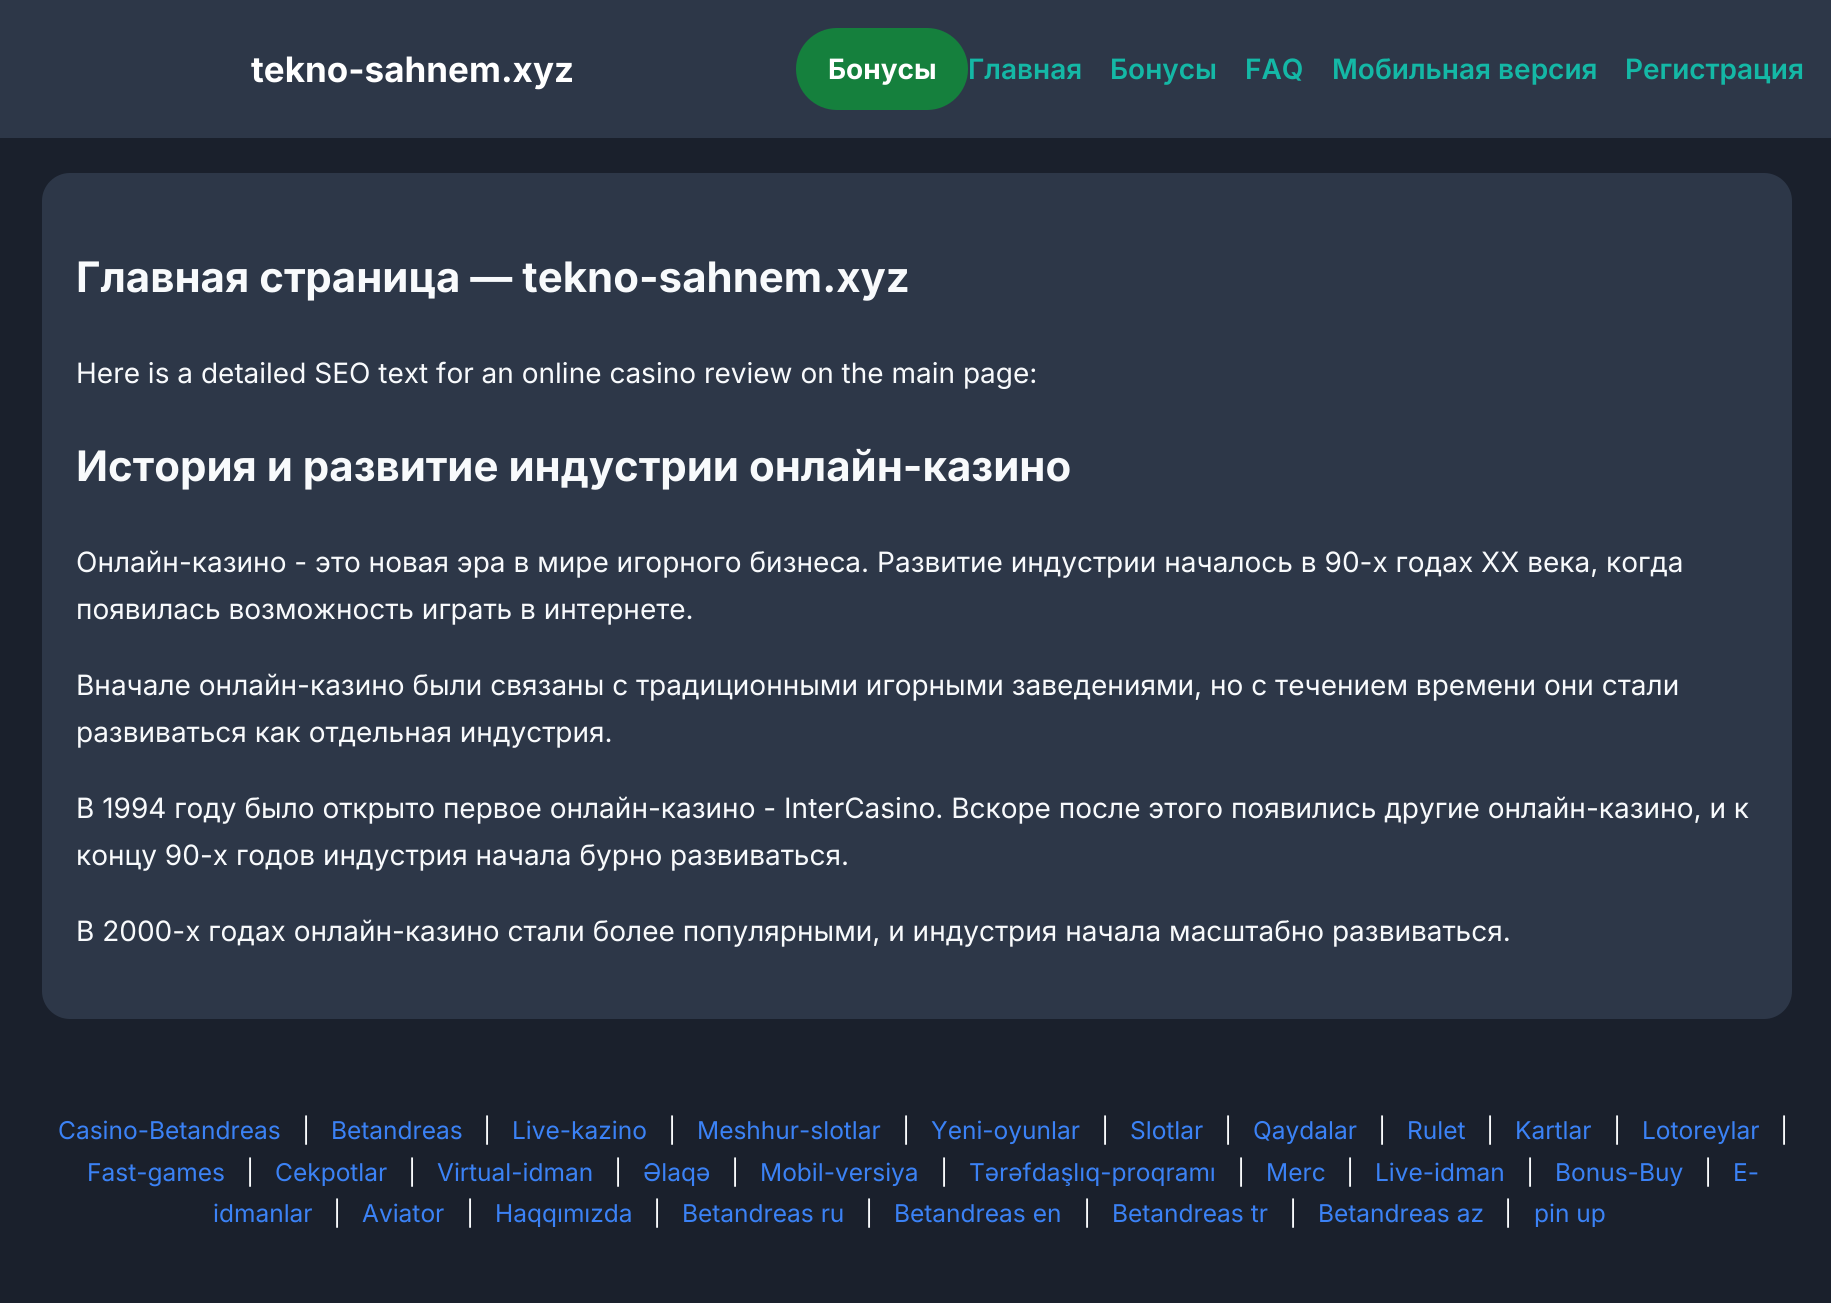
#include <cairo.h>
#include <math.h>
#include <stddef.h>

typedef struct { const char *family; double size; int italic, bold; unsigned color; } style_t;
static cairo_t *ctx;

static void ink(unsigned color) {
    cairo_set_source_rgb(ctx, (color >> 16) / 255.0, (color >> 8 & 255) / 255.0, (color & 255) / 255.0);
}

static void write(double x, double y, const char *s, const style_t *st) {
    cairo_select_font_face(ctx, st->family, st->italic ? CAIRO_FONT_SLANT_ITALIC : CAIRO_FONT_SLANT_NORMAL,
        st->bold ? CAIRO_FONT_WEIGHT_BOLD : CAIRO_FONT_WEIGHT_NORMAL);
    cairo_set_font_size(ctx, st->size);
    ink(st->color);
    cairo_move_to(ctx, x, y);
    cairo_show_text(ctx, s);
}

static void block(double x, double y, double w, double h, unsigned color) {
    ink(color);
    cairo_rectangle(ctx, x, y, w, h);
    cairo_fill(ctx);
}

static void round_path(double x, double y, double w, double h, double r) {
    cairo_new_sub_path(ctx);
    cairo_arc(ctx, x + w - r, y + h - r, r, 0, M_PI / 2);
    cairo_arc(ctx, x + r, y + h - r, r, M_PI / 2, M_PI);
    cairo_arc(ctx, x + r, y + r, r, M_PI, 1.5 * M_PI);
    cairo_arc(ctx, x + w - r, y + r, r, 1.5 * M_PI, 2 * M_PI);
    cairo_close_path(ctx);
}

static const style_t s1 = {"Inter", 35, 0, 1, 0xffffff};
static const style_t s2 = {"Inter", 28, 0, 1, 0xffffff};
static const style_t s3 = {"Inter SemiBold", 28, 0, 0, 0x14b8a6};
static const style_t s4 = {"Inter", 42, 0, 1, 0xf8fafc};
static const style_t s5 = {"Inter", 28, 0, 0, 0xf8fafc};
static const style_t s6 = {"Inter", 24.5, 0, 0, 0x3b82f6};
static const style_t s7 = {"Inter", 24.5, 0, 0, 0xf8fafc};

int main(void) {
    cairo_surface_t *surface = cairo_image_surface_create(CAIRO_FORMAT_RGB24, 1831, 1303);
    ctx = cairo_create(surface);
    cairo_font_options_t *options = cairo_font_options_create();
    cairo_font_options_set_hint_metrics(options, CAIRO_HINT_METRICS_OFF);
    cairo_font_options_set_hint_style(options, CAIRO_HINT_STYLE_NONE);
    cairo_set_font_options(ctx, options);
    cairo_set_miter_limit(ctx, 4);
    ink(0x1a202c);
    cairo_paint(ctx);
    block(0, 0, 1831, 138, 0x2d3748);
    write(251, 82, "tekno-sahnem.xyz", &s1);
    ink(0x15803d);
    round_path(796, 28, 172, 82, 41);
    cairo_fill(ctx);
    write(828, 79, "Бонусы", &s2);
    write(968, 79, "Главная", &s3);
    write(1110, 79, "Бонусы", &s3);
    write(1245, 79, "FAQ", &s3);
    write(1332, 79, "Мобильная версия", &s3);
    write(1625, 79, "Регистрация", &s3);
    ink(0x2d3748);
    round_path(42, 173, 1750, 846, 28);
    cairo_fill(ctx);
    write(76, 292, "Главная страница — tekno-sahnem.xyz", &s4);
    write(76, 383, "Here is a detailed SEO text for an online casino review on the main page:", &s5);
    write(76, 481, "История и развитие индустрии онлайн-казино", &s4);
    write(76, 572, "Онлайн-казино - это новая эра в мире игорного бизнеса. Развитие индустрии началось в 90-х годах XX века, когда", &s5);
    write(76, 619, "появилась возможность играть в интернете.", &s5);
    write(76, 695, "Вначале онлайн-казино были связаны с традиционными игорными заведениями, но с течением времени они стали", &s5);
    write(76, 742, "развиваться как отдельная индустрия.", &s5);
    write(76, 818, "В 1994 году было открыто первое онлайн-казино - InterCasino. Вскоре после этого появились другие онлайн-казино, и к", &s5);
    write(76, 865, "концу 90-х годов индустрия начала бурно развиваться.", &s5);
    write(76, 941, "В 2000-х годах онлайн-казино стали более популярными, и индустрия начала масштабно развиваться.", &s5);
    write(58, 1139, "Casino-Betandreas", &s6);
    write(302, 1139, "|", &s7);
    write(331, 1139, "Betandreas", &s6);
    write(483, 1139, "|", &s7);
    write(512, 1139, "Live-kazino", &s6);
    write(668, 1139, "|", &s7);
    write(697, 1139, "Meshhur-slotlar", &s6);
    write(902, 1139, "|", &s7);
    write(931, 1139, "Yeni-oyunlar", &s6);
    write(1101, 1139, "|", &s7);
    write(1130, 1139, "Slotlar", &s6);
    write(1224, 1139, "|", &s7);
    write(1253, 1139, "Qaydalar", &s6);
    write(1378, 1139, "|", &s7);
    write(1407, 1139, "Rulet", &s6);
    write(1486, 1139, "|", &s7);
    write(1515, 1139, "Kartlar", &s6);
    write(1613, 1139, "|", &s7);
    write(1642, 1139, "Lotoreylar", &s6);
    write(1780, 1139, "|", &s7);
    write(87, 1181, "Fast-games", &s6);
    write(246, 1181, "|", &s7);
    write(275, 1181, "Cekpotlar", &s6);
    write(408, 1181, "|", &s7);
    write(437, 1181, "Virtual-idman", &s6);
    write(614, 1181, "|", &s7);
    write(643, 1181, "Əlaqə", &s6);
    write(731, 1181, "|", &s7);
    write(760, 1181, "Mobil-versiya", &s6);
    write(940, 1181, "|", &s7);
    write(969, 1181, "Tərəfdaşlıq-proqramı", &s6);
    write(1237, 1181, "|", &s7);
    write(1266, 1181, "Merc", &s6);
    write(1346, 1181, "|", &s7);
    write(1375, 1181, "Live-idman", &s6);
    write(1526, 1181, "|", &s7);
    write(1555, 1181, "Bonus-Buy", &s6);
    write(1704, 1181, "|", &s7);
    write(1733, 1181, "E-", &s6);
    write(213, 1222, "idmanlar", &s6);
    write(333, 1222, "|", &s7);
    write(362, 1222, "Aviator", &s6);
    write(466, 1222, "|", &s7);
    write(495, 1222, "Haqqımızda", &s6);
    write(653, 1222, "|", &s7);
    write(682, 1222, "Betandreas ru", &s6);
    write(865, 1222, "|", &s7);
    write(894, 1222, "Betandreas en", &s6);
    write(1083, 1222, "|", &s7);
    write(1112, 1222, "Betandreas tr", &s6);
    write(1289, 1222, "|", &s7);
    write(1318, 1222, "Betandreas az", &s6);
    write(1504, 1222, "|", &s7);
    write(1534, 1222, "pin up", &s6);
    cairo_surface_write_to_png(surface, "screenshot.png");
    cairo_font_options_destroy(options);
    cairo_destroy(ctx);
    cairo_surface_destroy(surface);
    return 0;
}
